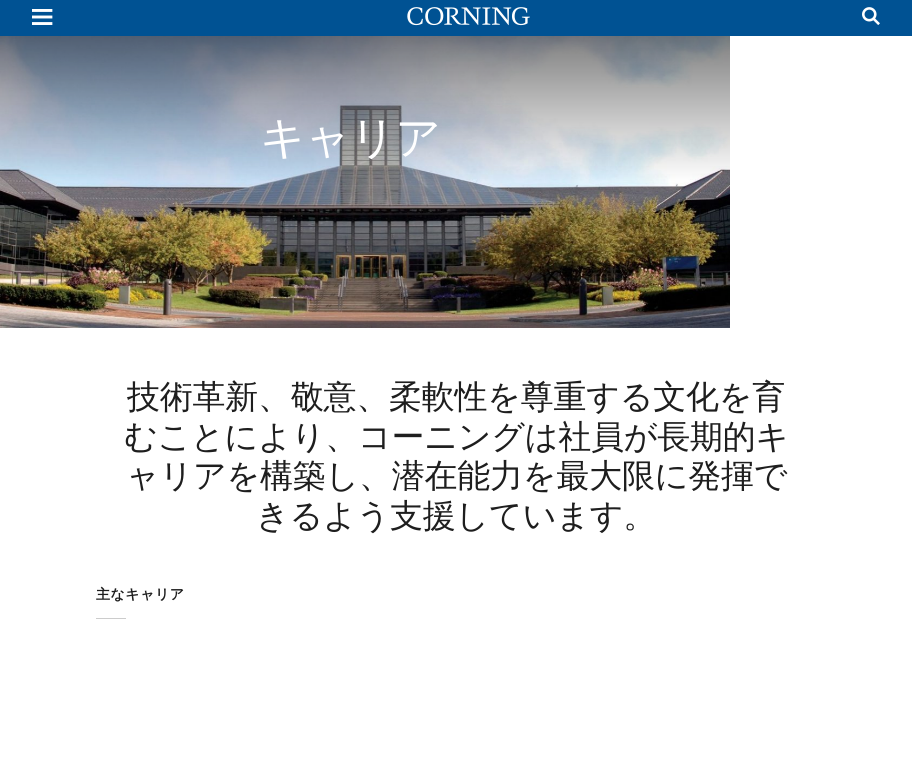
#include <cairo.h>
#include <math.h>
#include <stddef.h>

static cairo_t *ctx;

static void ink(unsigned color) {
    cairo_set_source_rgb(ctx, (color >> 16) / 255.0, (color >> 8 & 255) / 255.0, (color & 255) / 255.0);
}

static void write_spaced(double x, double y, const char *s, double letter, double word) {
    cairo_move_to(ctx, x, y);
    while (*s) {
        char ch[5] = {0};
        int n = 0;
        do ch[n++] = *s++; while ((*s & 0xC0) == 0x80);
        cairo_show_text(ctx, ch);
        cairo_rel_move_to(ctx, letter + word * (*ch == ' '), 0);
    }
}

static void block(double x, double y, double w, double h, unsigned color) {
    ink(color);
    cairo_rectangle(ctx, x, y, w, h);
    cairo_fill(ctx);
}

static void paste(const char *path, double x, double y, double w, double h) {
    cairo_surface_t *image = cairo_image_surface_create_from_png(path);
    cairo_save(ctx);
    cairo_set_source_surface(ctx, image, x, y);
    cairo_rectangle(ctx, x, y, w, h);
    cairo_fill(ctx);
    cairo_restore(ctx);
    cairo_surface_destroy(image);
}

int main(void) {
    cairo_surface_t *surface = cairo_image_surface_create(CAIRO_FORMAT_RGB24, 912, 764);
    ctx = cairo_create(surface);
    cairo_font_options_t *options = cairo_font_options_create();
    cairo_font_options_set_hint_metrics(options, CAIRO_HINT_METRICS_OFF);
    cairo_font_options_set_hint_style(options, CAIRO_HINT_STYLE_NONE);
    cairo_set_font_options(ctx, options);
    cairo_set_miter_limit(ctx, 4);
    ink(0xffffff);
    cairo_paint(ctx);
    block(0, 0, 912, 36, 0x005293);
    paste("pic1.png", 32, 9, 21, 16);
    paste("pic2.png", 407, 7, 123, 19);
    paste("pic3.png", 862, 7, 18, 18);
    paste("pic4.png", 0, 36, 730, 292);
    cairo_select_font_face(ctx, "WenQuanYi Zen Hei Medium", CAIRO_FONT_SLANT_NORMAL, CAIRO_FONT_WEIGHT_NORMAL);
    cairo_set_font_size(ctx, 45);
    ink(0xffffff);
    write_spaced(260, 153, "キャリア", -1, 0);
    cairo_set_font_size(ctx, 33);
    ink(0x1e1e1e);
    write_spaced(127, 408, "技術革新、敬意、柔軟性を尊重する文化を育", -0.25, 0);
    write_spaced(124, 448, "むことにより、コーニングは社員が長期的キ", -0.25, 0);
    write_spaced(126, 487, "ャリアを構築し、潜在能力を最大限に発揮で", -0.25, 0);
    write_spaced(256, 527, "きるよう支援しています。", -0.25, 0);
    cairo_select_font_face(ctx, "WenQuanYi Zen Hei", CAIRO_FONT_SLANT_NORMAL, CAIRO_FONT_WEIGHT_BOLD);
    cairo_set_font_size(ctx, 14);
    write_spaced(96, 599, "主なキャリア", 0.5, 0);
    block(96, 618, 30, 1, 0xcccccc);
    cairo_surface_write_to_png(surface, "screenshot.png");
    cairo_font_options_destroy(options);
    cairo_destroy(ctx);
    cairo_surface_destroy(surface);
    return 0;
}
